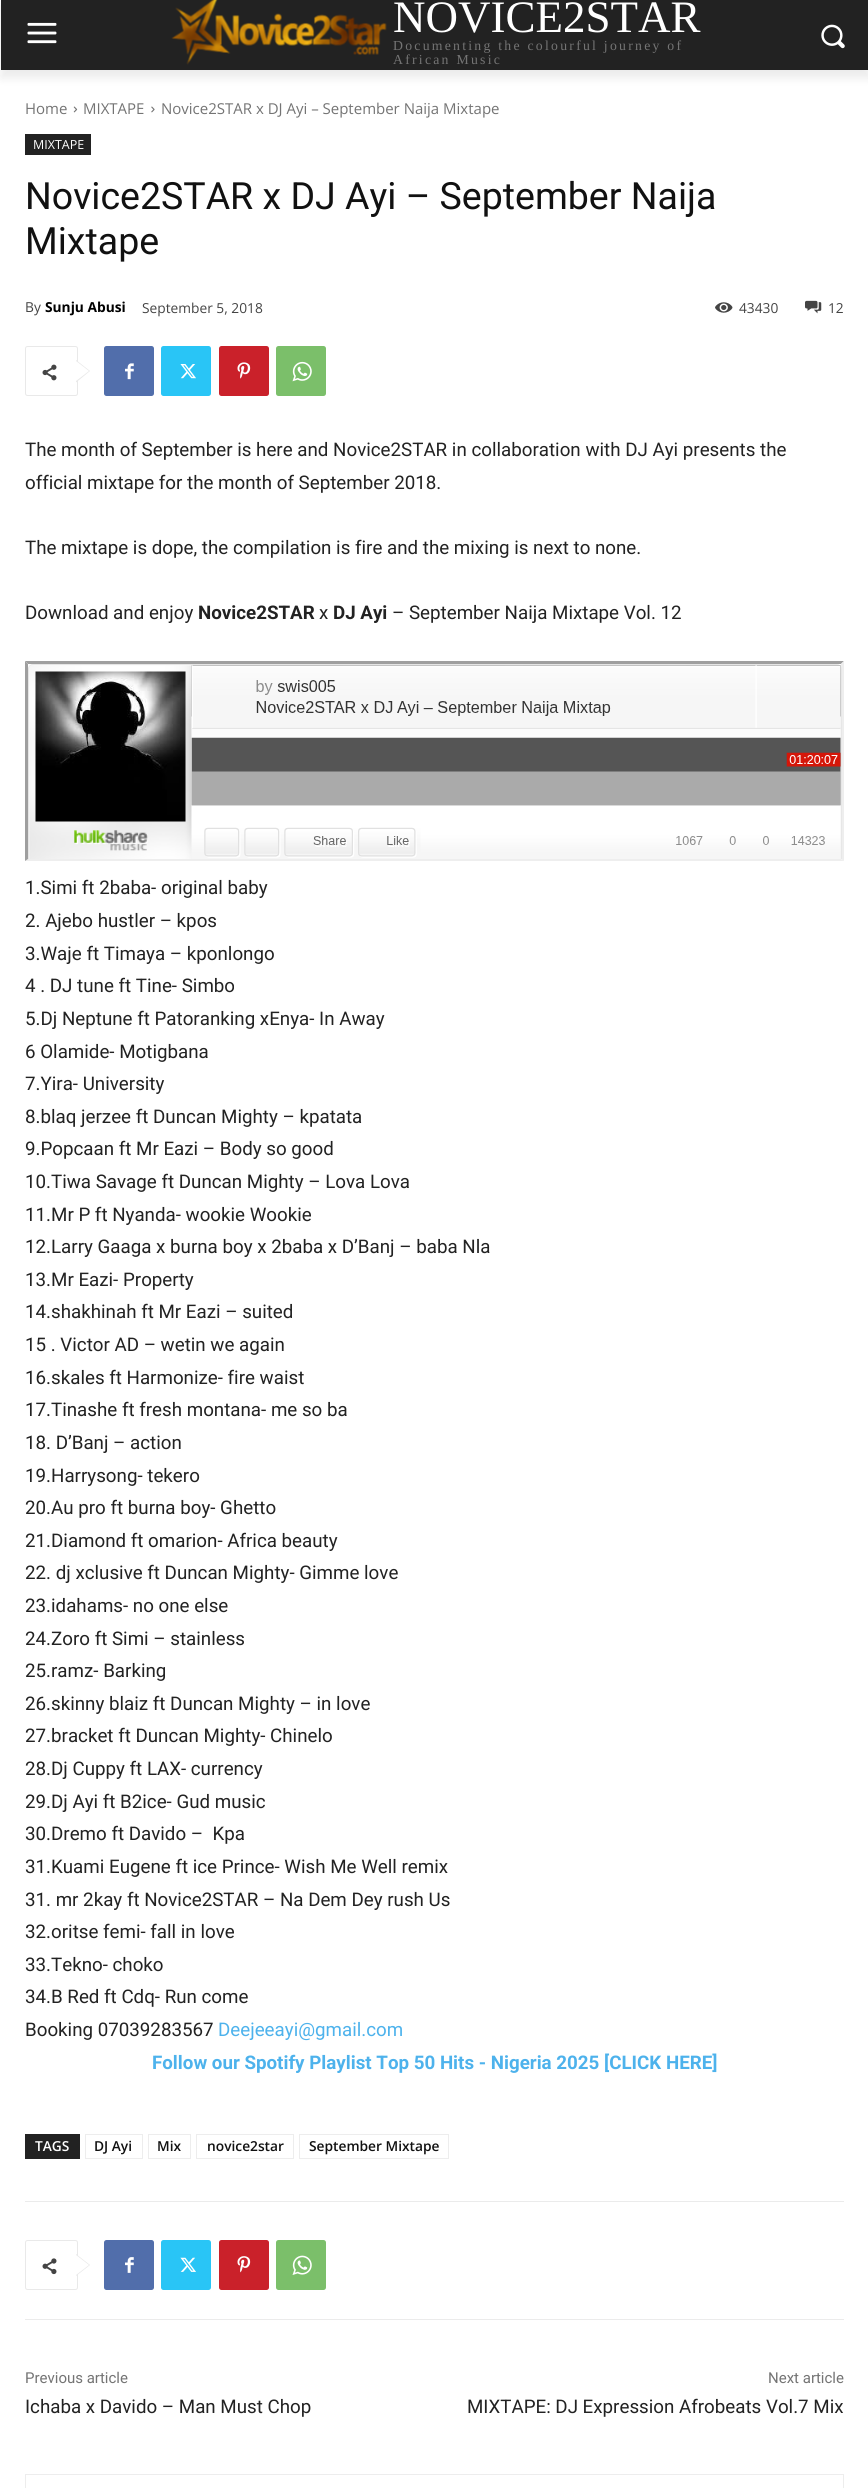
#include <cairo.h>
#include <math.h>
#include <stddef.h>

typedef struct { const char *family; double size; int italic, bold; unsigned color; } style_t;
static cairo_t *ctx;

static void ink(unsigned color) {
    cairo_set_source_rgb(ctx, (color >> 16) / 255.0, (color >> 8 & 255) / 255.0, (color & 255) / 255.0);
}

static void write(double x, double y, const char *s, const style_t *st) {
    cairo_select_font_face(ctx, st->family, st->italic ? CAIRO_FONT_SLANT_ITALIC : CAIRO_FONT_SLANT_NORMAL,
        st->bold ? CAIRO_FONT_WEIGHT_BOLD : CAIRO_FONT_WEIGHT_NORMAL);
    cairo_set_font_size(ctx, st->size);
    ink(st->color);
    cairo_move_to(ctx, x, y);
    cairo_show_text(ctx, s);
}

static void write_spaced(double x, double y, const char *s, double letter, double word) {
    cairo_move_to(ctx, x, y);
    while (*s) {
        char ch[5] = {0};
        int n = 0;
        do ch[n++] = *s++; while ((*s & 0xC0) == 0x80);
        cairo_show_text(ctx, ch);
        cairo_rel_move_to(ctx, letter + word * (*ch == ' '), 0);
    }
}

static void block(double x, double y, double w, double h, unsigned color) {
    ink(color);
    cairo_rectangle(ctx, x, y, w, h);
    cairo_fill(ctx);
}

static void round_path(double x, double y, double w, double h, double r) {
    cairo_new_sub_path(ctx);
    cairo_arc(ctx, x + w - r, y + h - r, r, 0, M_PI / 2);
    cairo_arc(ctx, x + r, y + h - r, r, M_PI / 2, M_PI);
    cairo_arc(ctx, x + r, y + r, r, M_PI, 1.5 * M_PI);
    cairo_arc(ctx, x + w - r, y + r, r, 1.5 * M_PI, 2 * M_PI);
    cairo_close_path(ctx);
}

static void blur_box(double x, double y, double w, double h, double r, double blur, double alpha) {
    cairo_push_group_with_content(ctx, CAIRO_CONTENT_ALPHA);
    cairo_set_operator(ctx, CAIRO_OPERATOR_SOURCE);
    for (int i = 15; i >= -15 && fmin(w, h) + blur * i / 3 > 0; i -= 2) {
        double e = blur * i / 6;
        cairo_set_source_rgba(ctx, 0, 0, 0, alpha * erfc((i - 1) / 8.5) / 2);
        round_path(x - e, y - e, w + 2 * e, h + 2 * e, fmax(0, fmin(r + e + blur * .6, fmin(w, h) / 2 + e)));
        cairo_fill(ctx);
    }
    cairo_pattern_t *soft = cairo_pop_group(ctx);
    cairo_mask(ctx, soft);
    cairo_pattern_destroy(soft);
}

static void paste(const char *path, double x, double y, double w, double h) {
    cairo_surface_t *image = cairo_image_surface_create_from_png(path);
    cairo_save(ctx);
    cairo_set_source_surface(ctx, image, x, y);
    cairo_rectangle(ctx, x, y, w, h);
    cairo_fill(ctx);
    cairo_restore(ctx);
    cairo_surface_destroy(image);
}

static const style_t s1 = {"Liberation Serif", 45, 0, 0, 0xffffff};
static const style_t s2 = {"Open Sans", 15, 0, 0, 0x747474};
static const style_t s3 = {"Open Sans", 12.5, 0, 0, 0xffffff};
static const style_t s4 = {"Roboto", 37.5, 0, 0, 0x111111};
static const style_t s5 = {"Open Sans", 13.75, 0, 0, 0x444444};
static const style_t s6 = {"Open Sans", 13.75, 0, 1, 0x000000};
static const style_t s7 = {"Roboto", 18.75, 0, 0, 0x222222};
static const style_t s8 = {"Roboto", 18.75, 0, 1, 0x222222};
static const style_t s9 = {"Roboto", 18.75, 0, 0, 0x4db2ec};
static const style_t s10 = {"Roboto", 18.75, 0, 1, 0x4db2ec};
static const style_t s11 = {"Open Sans SemiBold", 13.75, 0, 0, 0xffffff};
static const style_t s12 = {"Open Sans SemiBold", 13.75, 0, 0, 0x111111};
static const style_t s13 = {"Roboto", 15, 0, 0, 0x747474};

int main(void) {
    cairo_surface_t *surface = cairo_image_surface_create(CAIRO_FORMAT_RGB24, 868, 2488);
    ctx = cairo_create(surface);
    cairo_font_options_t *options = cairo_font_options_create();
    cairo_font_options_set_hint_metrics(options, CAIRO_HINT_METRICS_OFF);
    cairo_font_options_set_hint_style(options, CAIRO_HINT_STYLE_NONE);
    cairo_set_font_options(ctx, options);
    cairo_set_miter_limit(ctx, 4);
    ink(0xffffff);
    cairo_paint(ctx);
    block(1, 0, 867, 70, 0x222222);
    paste("pic1.png", 27, 22, 30, 22);
    paste("pic2.png", 171, 0, 216, 65);
    paste("pic3.png", 821, 24, 24, 25);
    cairo_save(ctx);
    cairo_set_fill_rule(ctx, CAIRO_FILL_RULE_EVEN_ODD);
    cairo_new_path(ctx);
    cairo_move_to(ctx, 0, 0);
    cairo_line_to(ctx, 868, 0);
    cairo_line_to(ctx, 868, 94);
    cairo_line_to(ctx, 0, 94);
    cairo_close_path(ctx);
    cairo_move_to(ctx, 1, 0);
    cairo_line_to(ctx, 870, 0);
    cairo_line_to(ctx, 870, 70);
    cairo_line_to(ctx, 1, 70);
    cairo_close_path(ctx);
    cairo_clip(ctx);
    ink(0x000000);
    blur_box(1, 8, 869, 70, 0, 5, 0.08);
    cairo_restore(ctx);
    write(393, 32, "NOVICE2STAR", &s1);
    cairo_set_font_size(ctx, 13.75);
    ink(0x747474);
    write_spaced(393, 50, "Documenting the colourful journey of", 2.25, 0);
    write_spaced(393, 64, "African Music", 2.25, 0);
    write(25, 114, "Home", &s2);
    paste("pic4.png", 73, 106, 5, 7);
    write(83, 114, "MIXTAPE", &s2);
    paste("pic5.png", 151, 106, 4, 7);
    write(161, 114, "Novice2STAR x DJ Ayi – September Naija Mixtape", &s2);
    block(25, 134, 66, 21, 0x222222);
    write(33, 149, "MIXTAPE", &s3);
    write(25, 209, "Novice2STAR x DJ Ayi – September Naija", &s4);
    write(25, 254, "Mixtape", &s4);
    write(25, 312, "By", &s5);
    write(45, 312, "Sunju Abusi", &s6);
    write(142, 313, "September 5, 2018", &s5);
    paste("pic6.png", 715, 302, 18, 11);
    write(739, 313, "43430", &s5);
    paste("pic7.png", 805, 300, 17, 14);
    write(828, 313, "12", &s5);
    round_path(25.5, 346.5, 52, 49, 2);
    ink(0xe9e9e9);
    cairo_set_line_width(ctx, 1);
    cairo_stroke(ctx);
    cairo_new_path(ctx);
    cairo_move_to(ctx, 76, 382.5);
    cairo_line_to(ctx, 76, 360);
    cairo_line_to(ctx, 90, 371);
    cairo_close_path(ctx);
    cairo_fill(ctx);
    paste("pic8.png", 42, 364, 15, 17);
    ink(0xffffff);
    cairo_new_path(ctx);
    cairo_move_to(ctx, 76, 381);
    cairo_line_to(ctx, 76, 361);
    cairo_line_to(ctx, 89, 371);
    cairo_close_path(ctx);
    cairo_fill(ctx);
    ink(0x516eab);
    round_path(104, 346, 50, 50, 2.5);
    cairo_fill(ctx);
    paste("pic9.png", 125, 363, 9, 17);
    ink(0x29c5f6);
    round_path(161, 346, 50, 50, 2.5);
    cairo_fill(ctx);
    paste("pic10.png", 180, 364, 16, 15);
    ink(0xca212a);
    round_path(219, 346, 50, 50, 2.5);
    cairo_fill(ctx);
    paste("pic11.png", 237, 362, 14, 17);
    ink(0x7bbf6a);
    round_path(276, 346, 50, 50, 2.5);
    cairo_fill(ctx);
    paste("pic12.png", 292, 361, 20, 21);
    write(25, 456, "The month of September is here and Novice2STAR in collaboration with DJ Ayi presents the", &s7);
    write(25, 489, "official mixtape for the month of September 2018.", &s7);
    write(25, 554, "The mixtape is dope, the compilation is fire and the mixing is next to none.", &s7);
    write(25, 619, "Download and enjoy", &s7);
    write(198, 619, "Novice2STAR", &s8);
    write(319, 619, "x", &s7);
    write(333, 619, "DJ Ayi", &s8);
    write(392, 619, "– September Naija Mixtape Vol. 12", &s7);
    ink(0x9f9f9f);
    cairo_new_path(ctx);
    cairo_move_to(ctx, 25, 661);
    cairo_line_to(ctx, 844, 661);
    cairo_line_to(ctx, 841, 664);
    cairo_line_to(ctx, 28, 664);
    cairo_close_path(ctx);
    cairo_fill(ctx);
    ink(0xeeeeee);
    cairo_new_path(ctx);
    cairo_move_to(ctx, 844, 661);
    cairo_line_to(ctx, 844, 861);
    cairo_line_to(ctx, 841, 859);
    cairo_line_to(ctx, 841, 664);
    cairo_close_path(ctx);
    cairo_fill(ctx);
    cairo_new_path(ctx);
    cairo_move_to(ctx, 844, 861);
    cairo_line_to(ctx, 25, 861);
    cairo_line_to(ctx, 28, 859);
    cairo_line_to(ctx, 841, 859);
    cairo_close_path(ctx);
    cairo_fill(ctx);
    ink(0x9f9f9f);
    cairo_new_path(ctx);
    cairo_move_to(ctx, 25, 861);
    cairo_line_to(ctx, 25, 661);
    cairo_line_to(ctx, 28, 664);
    cairo_line_to(ctx, 28, 859);
    cairo_close_path(ctx);
    cairo_fill(ctx);
    paste("pic13.png", 28, 664, 814, 195);
    write(25, 894, "1.Simi ft 2baba- original baby", &s7);
    write(25, 927, "2. Ajebo hustler – kpos", &s7);
    write(25, 960, "3.Waje ft Timaya – kponlongo", &s7);
    write(25, 992, "4 . DJ tune ft Tine- Simbo", &s7);
    write(25, 1025, "5.Dj Neptune ft Patoranking xEnya- In Away", &s7);
    write(25, 1058, "6 Olamide- Motigbana", &s7);
    write(25, 1090, "7.Yira- University", &s7);
    write(25, 1123, "8.blaq jerzee ft Duncan Mighty – kpatata", &s7);
    write(25, 1155, "9.Popcaan ft Mr Eazi – Body so good", &s7);
    write(25, 1188, "10.Tiwa Savage ft Duncan Mighty – Lova Lova", &s7);
    write(25, 1221, "11.Mr P ft Nyanda- wookie Wookie", &s7);
    write(25, 1253, "12.Larry Gaaga x burna boy x 2baba x D’Banj – baba Nla", &s7);
    write(25, 1286, "13.Mr Eazi- Property", &s7);
    write(25, 1318, "14.shakhinah ft Mr Eazi – suited", &s7);
    write(25, 1351, "15 . Victor AD – wetin we again", &s7);
    write(25, 1384, "16.skales ft Harmonize- fire waist", &s7);
    write(25, 1416, "17.Tinashe ft fresh montana- me so ba", &s7);
    write(25, 1449, "18. D’Banj – action", &s7);
    write(25, 1482, "19.Harrysong- tekero", &s7);
    write(25, 1514, "20.Au pro ft burna boy- Ghetto", &s7);
    write(25, 1547, "21.Diamond ft omarion- Africa beauty", &s7);
    write(25, 1579, "22. dj xclusive ft Duncan Mighty- Gimme love", &s7);
    write(25, 1612, "23.idahams- no one else", &s7);
    write(25, 1645, "24.Zoro ft Simi – stainless", &s7);
    write(25, 1677, "25.ramz- Barking", &s7);
    write(25, 1710, "26.skinny blaiz ft Duncan Mighty – in love", &s7);
    write(25, 1742, "27.bracket ft Duncan Mighty- Chinelo", &s7);
    write(25, 1775, "28.Dj Cuppy ft LAX- currency", &s7);
    write(25, 1808, "29.Dj Ayi ft B2ice- Gud music", &s7);
    write(25, 1840, "30.Dremo ft Davido –  Kpa", &s7);
    write(25, 1873, "31.Kuami Eugene ft ice Prince- Wish Me Well remix", &s7);
    write(25, 1906, "31. mr 2kay ft Novice2STAR – Na Dem Dey rush Us", &s7);
    write(25, 1938, "32.oritse femi- fall in love", &s7);
    write(25, 1971, "33.Tekno- choko", &s7);
    write(25, 2003, "34.B Red ft Cdq- Run come", &s7);
    write(25, 2036, "Booking 07039283567", &s7);
    write(218, 2036, "Deejeeayi@gmail.com", &s9);
    write(152, 2069, "Follow our Spotify Playlist Top 50 Hits - Nigeria 2025 [CLICK HERE]", &s10);
    block(25, 2134, 55, 25, 0x222222);
    write(35, 2151, "TAGS", &s11);
    cairo_rectangle(ctx, 85.5, 2134.5, 57, 24);
    ink(0xededed);
    cairo_stroke(ctx);
    write(94, 2151, "DJ Ayi", &s12);
    cairo_rectangle(ctx, 148.5, 2134.5, 42, 24);
    ink(0xededed);
    cairo_stroke(ctx);
    write(157, 2151, "Mix", &s12);
    cairo_rectangle(ctx, 196.5, 2134.5, 97, 24);
    ink(0xededed);
    cairo_stroke(ctx);
    write(207, 2151, "novice2star", &s12);
    cairo_rectangle(ctx, 299.5, 2134.5, 149, 24);
    ink(0xededed);
    cairo_stroke(ctx);
    write(309, 2151, "September Mixtape", &s12);
    block(25, 2201, 819, 1, 0xebebeb);
    round_path(25.5, 2240.5, 52, 49, 2);
    ink(0xe9e9e9);
    cairo_stroke(ctx);
    cairo_new_path(ctx);
    cairo_move_to(ctx, 76, 2276);
    cairo_line_to(ctx, 76, 2254);
    cairo_line_to(ctx, 90, 2265);
    cairo_close_path(ctx);
    cairo_fill(ctx);
    paste("pic14.png", 42, 2258, 15, 17);
    ink(0xffffff);
    cairo_new_path(ctx);
    cairo_move_to(ctx, 76, 2275);
    cairo_line_to(ctx, 76, 2255);
    cairo_line_to(ctx, 89, 2265);
    cairo_close_path(ctx);
    cairo_fill(ctx);
    ink(0x516eab);
    round_path(104, 2240, 50, 50, 2.5);
    cairo_fill(ctx);
    paste("pic15.png", 125, 2257, 9, 16);
    ink(0x29c5f6);
    round_path(161, 2240, 50, 50, 2.5);
    cairo_fill(ctx);
    paste("pic16.png", 180, 2257, 16, 15);
    ink(0xca212a);
    round_path(219, 2240, 50, 50, 2.5);
    cairo_fill(ctx);
    paste("pic17.png", 237, 2256, 14, 17);
    ink(0x7bbf6a);
    round_path(276, 2240, 50, 50, 2.5);
    cairo_fill(ctx);
    paste("pic18.png", 292, 2255, 20, 20);
    block(25, 2319, 819, 1, 0xebebeb);
    write(25, 2383, "Previous article", &s13);
    write(25, 2413, "Ichaba x Davido – Man Must Chop", &s7);
    write(768, 2383, "Next article", &s13);
    write(467, 2413, "MIXTAPE: DJ Expression Afrobeats Vol.7 Mix", &s7);
    cairo_rectangle(ctx, 25.5, 2474.5, 818, 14);
    ink(0xededed);
    cairo_stroke(ctx);
    cairo_surface_write_to_png(surface, "screenshot.png");
    cairo_font_options_destroy(options);
    cairo_destroy(ctx);
    cairo_surface_destroy(surface);
    return 0;
}
